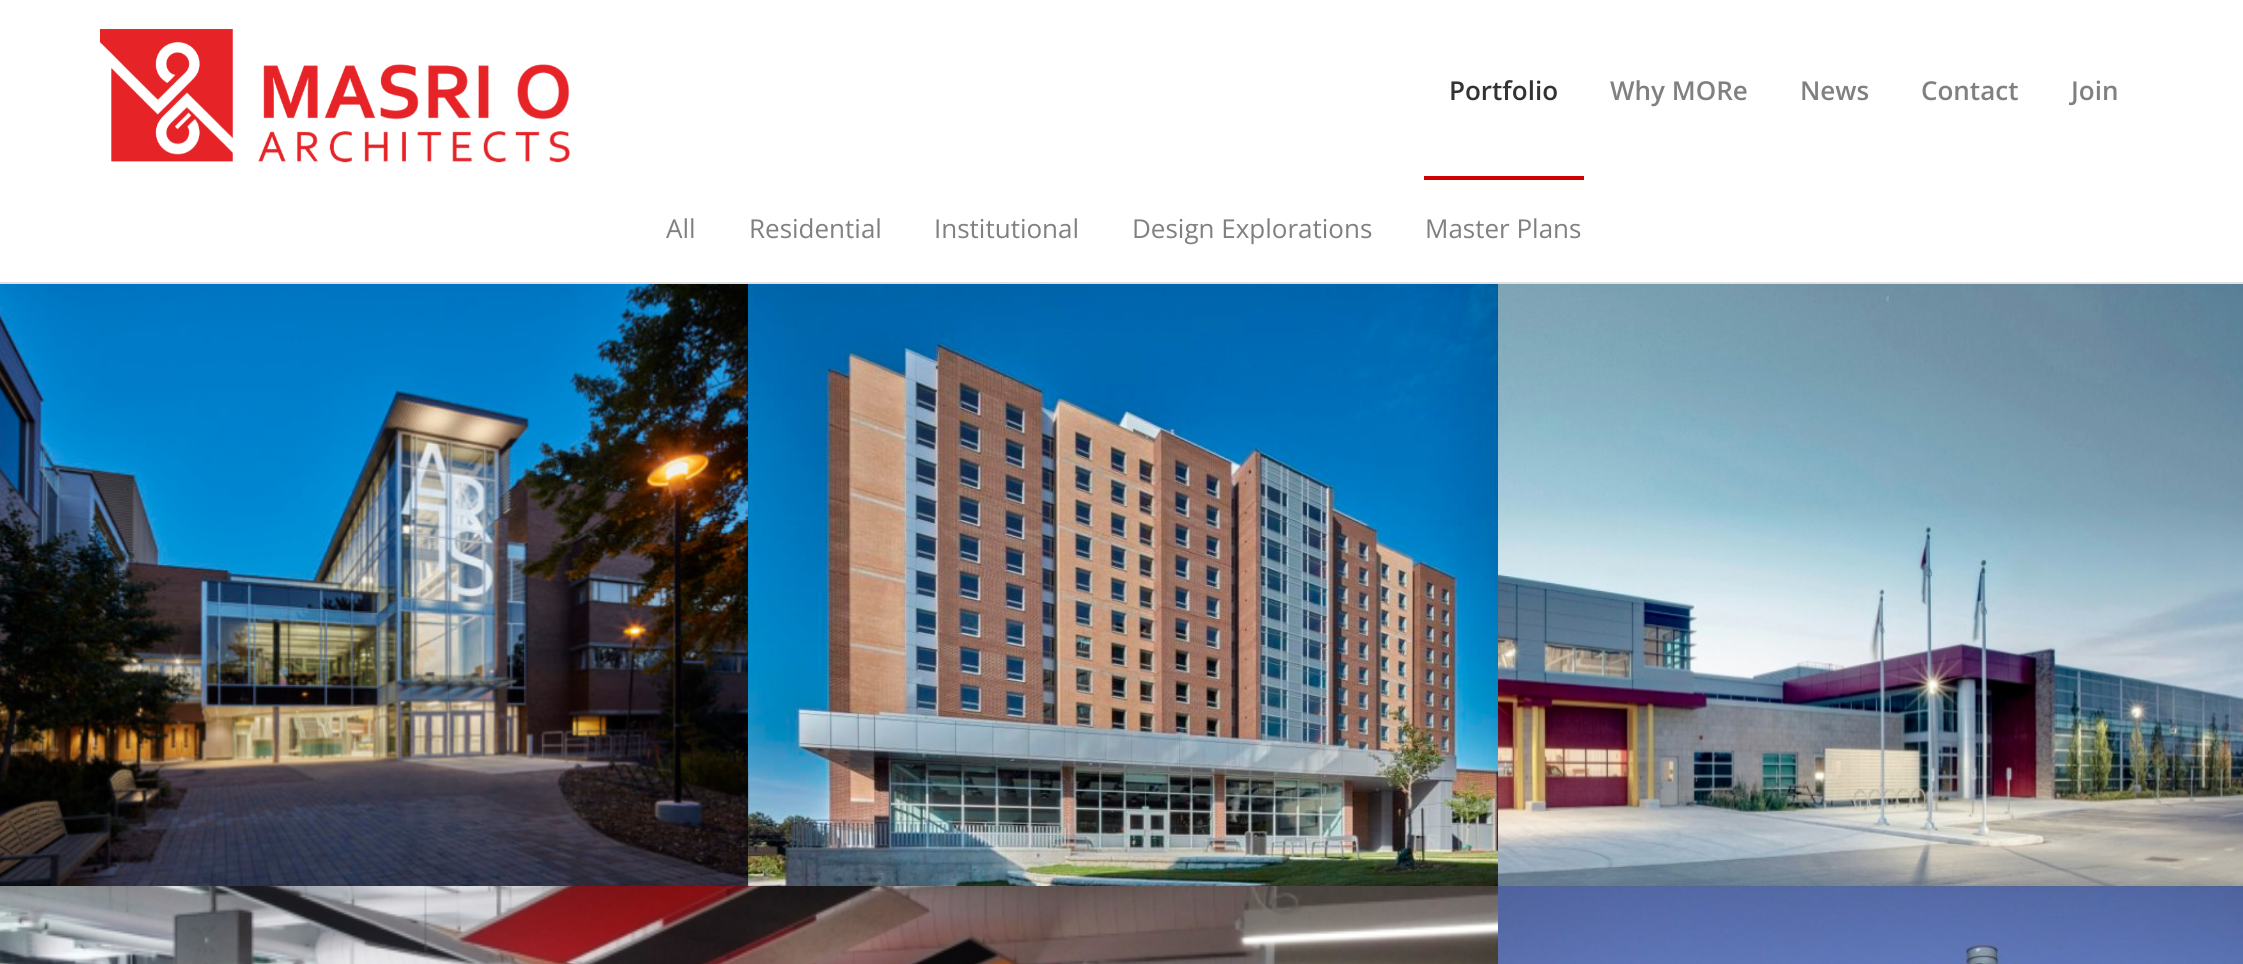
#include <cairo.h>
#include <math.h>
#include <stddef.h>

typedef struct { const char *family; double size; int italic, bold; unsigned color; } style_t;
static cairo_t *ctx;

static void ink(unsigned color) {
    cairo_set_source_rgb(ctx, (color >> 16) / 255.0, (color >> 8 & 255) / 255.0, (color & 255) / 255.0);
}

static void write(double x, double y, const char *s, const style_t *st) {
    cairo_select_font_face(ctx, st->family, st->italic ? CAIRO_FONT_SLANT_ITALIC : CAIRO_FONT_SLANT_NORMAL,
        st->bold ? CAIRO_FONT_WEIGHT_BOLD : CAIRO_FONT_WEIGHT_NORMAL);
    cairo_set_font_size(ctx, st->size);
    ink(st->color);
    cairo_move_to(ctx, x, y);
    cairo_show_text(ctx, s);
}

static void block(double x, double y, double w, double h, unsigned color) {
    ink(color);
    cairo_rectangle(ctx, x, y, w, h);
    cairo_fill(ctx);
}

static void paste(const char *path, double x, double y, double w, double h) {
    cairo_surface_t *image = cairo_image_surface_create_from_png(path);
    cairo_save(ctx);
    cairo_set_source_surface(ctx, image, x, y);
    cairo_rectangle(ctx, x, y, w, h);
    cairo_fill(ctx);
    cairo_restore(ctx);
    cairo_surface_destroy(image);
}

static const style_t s1 = {"Open Sans SemiBold", 26, 0, 0, 0x333333};
static const style_t s2 = {"Open Sans SemiBold", 26, 0, 0, 0x808080};
static const style_t s3 = {"Open Sans", 26, 0, 0, 0x808080};

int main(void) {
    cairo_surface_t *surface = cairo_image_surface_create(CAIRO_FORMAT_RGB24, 2243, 964);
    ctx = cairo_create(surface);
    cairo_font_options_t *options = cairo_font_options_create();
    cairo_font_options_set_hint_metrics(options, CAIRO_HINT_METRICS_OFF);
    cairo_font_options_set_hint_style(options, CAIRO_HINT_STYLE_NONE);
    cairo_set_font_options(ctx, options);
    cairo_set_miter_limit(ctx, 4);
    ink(0xffffff);
    cairo_paint(ctx);
    paste("pic1.png", 100, 29, 470, 134);
    write(1449, 100, "Portfolio", &s1);
    block(1424, 176, 160, 4, 0xcf0202);
    write(1610, 100, "Why MORe", &s2);
    write(1800, 100, "News", &s2);
    write(1921, 100, "Contact", &s2);
    write(2071, 100, "Join", &s2);
    write(666, 238, "All", &s3);
    write(749, 238, "Residential", &s3);
    write(934, 238, "Institutional", &s3);
    write(1132, 238, "Design Explorations", &s3);
    write(1425, 238, "Master Plans", &s3);
    block(0, 282, 2243, 2, 0xe1e1e1);
    paste("pic2.png", 0, 284, 748, 602);
    paste("pic3.png", 748, 284, 750, 602);
    paste("pic4.png", 1498, 284, 745, 602);
    paste("pic5.png", 0, 886, 1498, 78);
    paste("pic6.png", 1498, 886, 745, 78);
    cairo_surface_write_to_png(surface, "screenshot.png");
    cairo_font_options_destroy(options);
    cairo_destroy(ctx);
    cairo_surface_destroy(surface);
    return 0;
}
